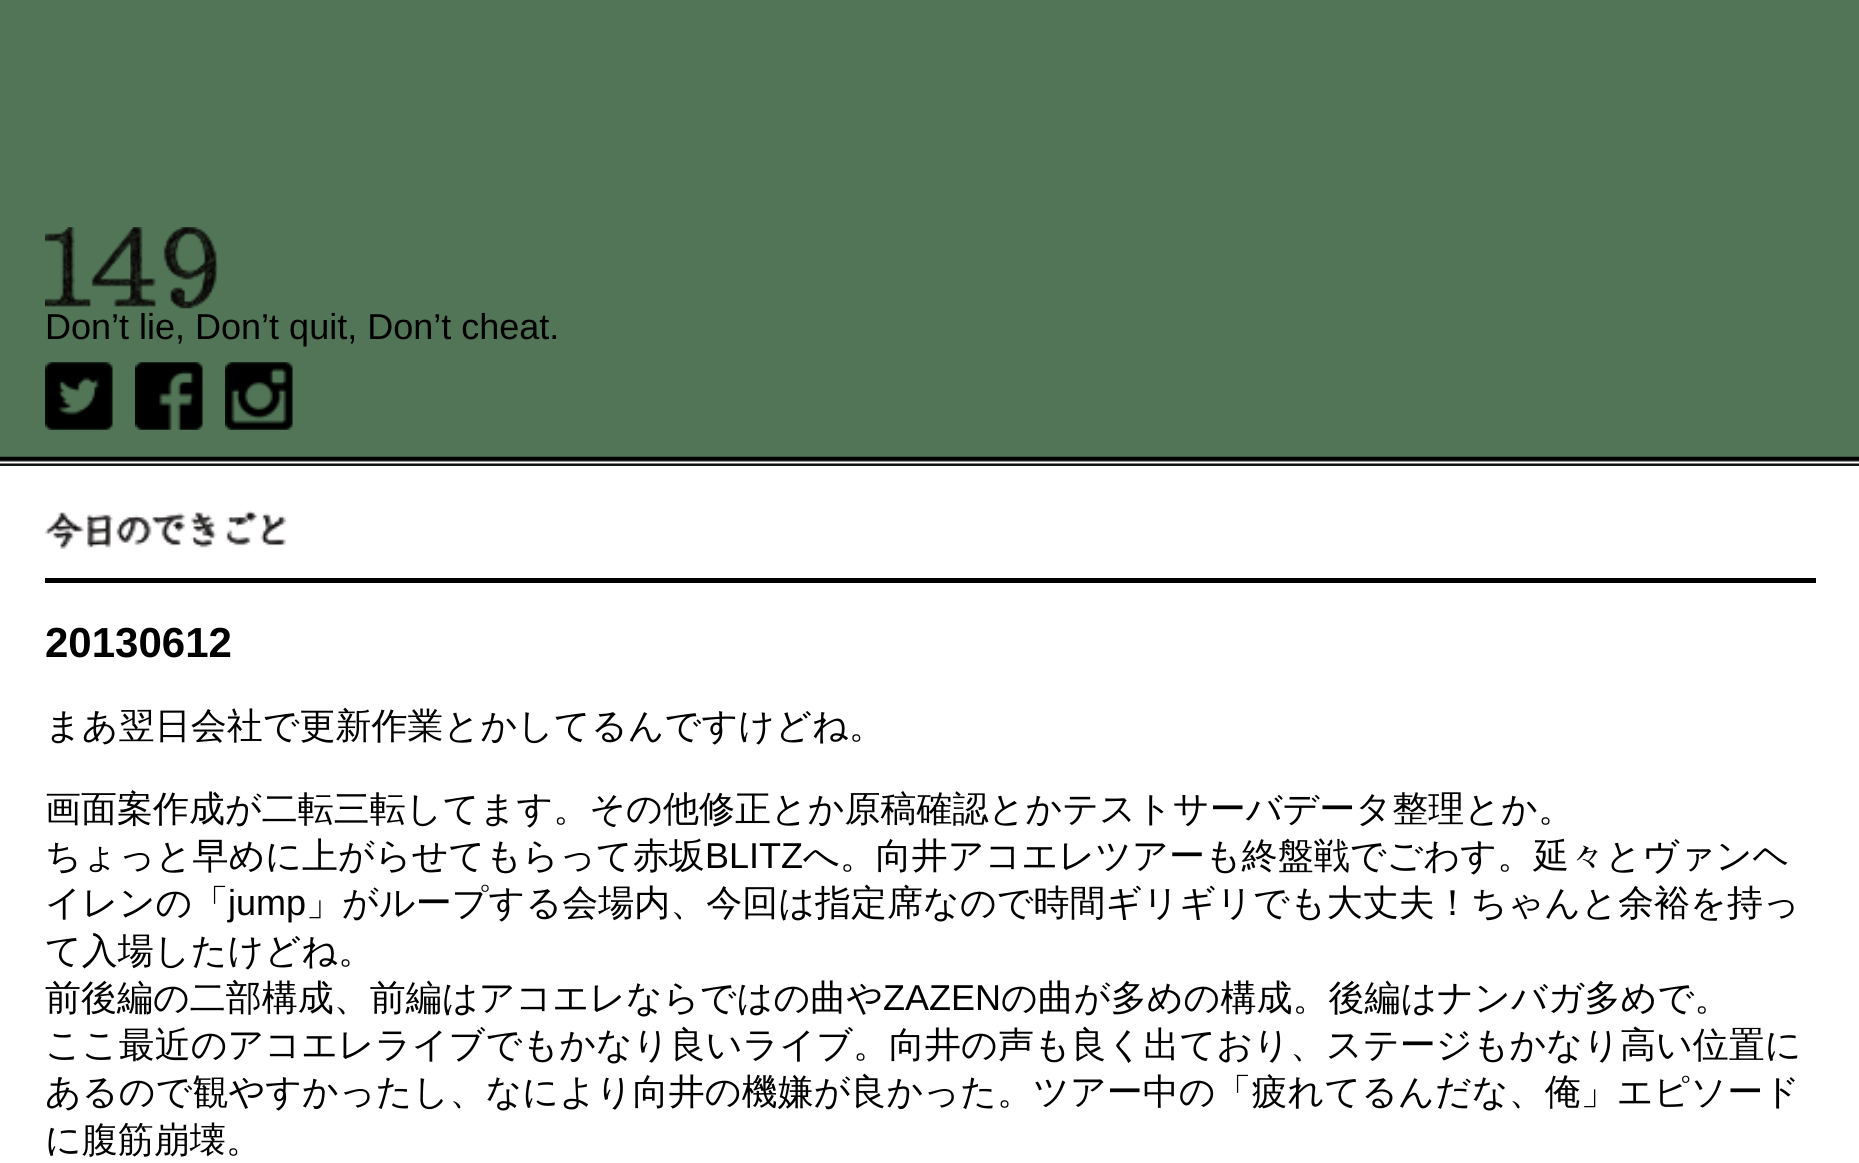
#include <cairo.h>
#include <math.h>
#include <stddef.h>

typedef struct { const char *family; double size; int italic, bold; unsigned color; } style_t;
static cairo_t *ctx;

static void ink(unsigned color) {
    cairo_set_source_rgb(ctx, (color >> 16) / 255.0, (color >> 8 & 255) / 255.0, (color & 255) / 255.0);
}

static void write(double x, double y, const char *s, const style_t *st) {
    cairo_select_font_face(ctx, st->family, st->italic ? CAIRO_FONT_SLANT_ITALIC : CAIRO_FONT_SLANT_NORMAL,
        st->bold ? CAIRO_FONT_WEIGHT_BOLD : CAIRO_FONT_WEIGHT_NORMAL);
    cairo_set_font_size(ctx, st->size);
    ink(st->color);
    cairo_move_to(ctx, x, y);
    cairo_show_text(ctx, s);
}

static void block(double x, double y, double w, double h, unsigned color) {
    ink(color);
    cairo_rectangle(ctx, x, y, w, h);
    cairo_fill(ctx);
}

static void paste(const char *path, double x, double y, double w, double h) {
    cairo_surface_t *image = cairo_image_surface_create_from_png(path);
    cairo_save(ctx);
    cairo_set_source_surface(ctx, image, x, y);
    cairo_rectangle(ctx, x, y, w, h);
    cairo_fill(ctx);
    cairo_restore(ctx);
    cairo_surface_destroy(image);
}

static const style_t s1 = {"Liberation Sans", 36, 0, 0, 0x000000};
static const style_t s2 = {"Liberation Sans", 42, 0, 1, 0x000000};
static const style_t s3 = {"WenQuanYi Zen Hei Medium", 36, 0, 0, 0x000000};

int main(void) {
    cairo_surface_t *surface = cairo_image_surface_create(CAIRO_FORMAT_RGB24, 1859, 1163);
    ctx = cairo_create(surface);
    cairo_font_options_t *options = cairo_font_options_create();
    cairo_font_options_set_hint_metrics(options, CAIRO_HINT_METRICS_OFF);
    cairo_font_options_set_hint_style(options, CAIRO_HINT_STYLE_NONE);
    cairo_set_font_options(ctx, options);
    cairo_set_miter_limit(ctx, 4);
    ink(0x517556);
    cairo_paint(ctx);
    paste("pic1.png", 0, 456, 1859, 10);
    paste("pic2.png", 45, 227, 173, 82);
    write(45, 339, "Don’t lie, Don’t quit, Don’t cheat.", &s1);
    paste("pic3.png", 45, 362, 68, 68);
    paste("pic4.png", 135, 362, 68, 68);
    paste("pic5.png", 225, 362, 68, 68);
    block(0, 466, 1859, 697, 0xffffff);
    paste("pic6.png", 45, 510, 241, 39);
    block(45, 578, 1771, 5, 0x000000);
    write(45, 657, "20130612", &s2);
    write(45, 738, "まあ翌日会社で更新作業とかしてるんですけどね。", &s3);
    write(45, 821, "画面案作成が二転三転してます。その他修正とか原稿確認とかテストサーバデータ整理とか。", &s3);
    write(45, 868, "ちょっと早めに上がらせてもらって赤坂", &s3);
    write(705, 868, "BLITZ", &s1);
    write(803, 868, "へ。向井アコエレツアーも終盤戦でごわす。延々とヴァンヘ", &s3);
    write(45, 915, "イレンの「", &s3);
    write(228, 915, "jump", &s1);
    write(306, 915, "」がループする会場内、今回は指定席なので時間ギリギリでも大丈夫！ちゃんと余裕を持っ", &s3);
    write(45, 963, "て入場したけどね。", &s3);
    write(45, 1010, "前後編の二部構成、前編はアコエレならではの曲や", &s3);
    write(883, 1010, "ZAZEN", &s1);
    write(1001, 1010, "の曲が多めの構成。後編はナンバガ多めで。", &s3);
    write(45, 1057, "ここ最近のアコエレライブでもかなり良いライブ。向井の声も良く出ており、ステージもかなり高い位置に", &s3);
    write(45, 1104, "あるので観やすかったし、なにより向井の機嫌が良かった。ツアー中の「疲れてるんだな、俺」エピソード", &s3);
    write(45, 1152, "に腹筋崩壊。", &s3);
    cairo_surface_write_to_png(surface, "screenshot.png");
    cairo_font_options_destroy(options);
    cairo_destroy(ctx);
    cairo_surface_destroy(surface);
    return 0;
}
